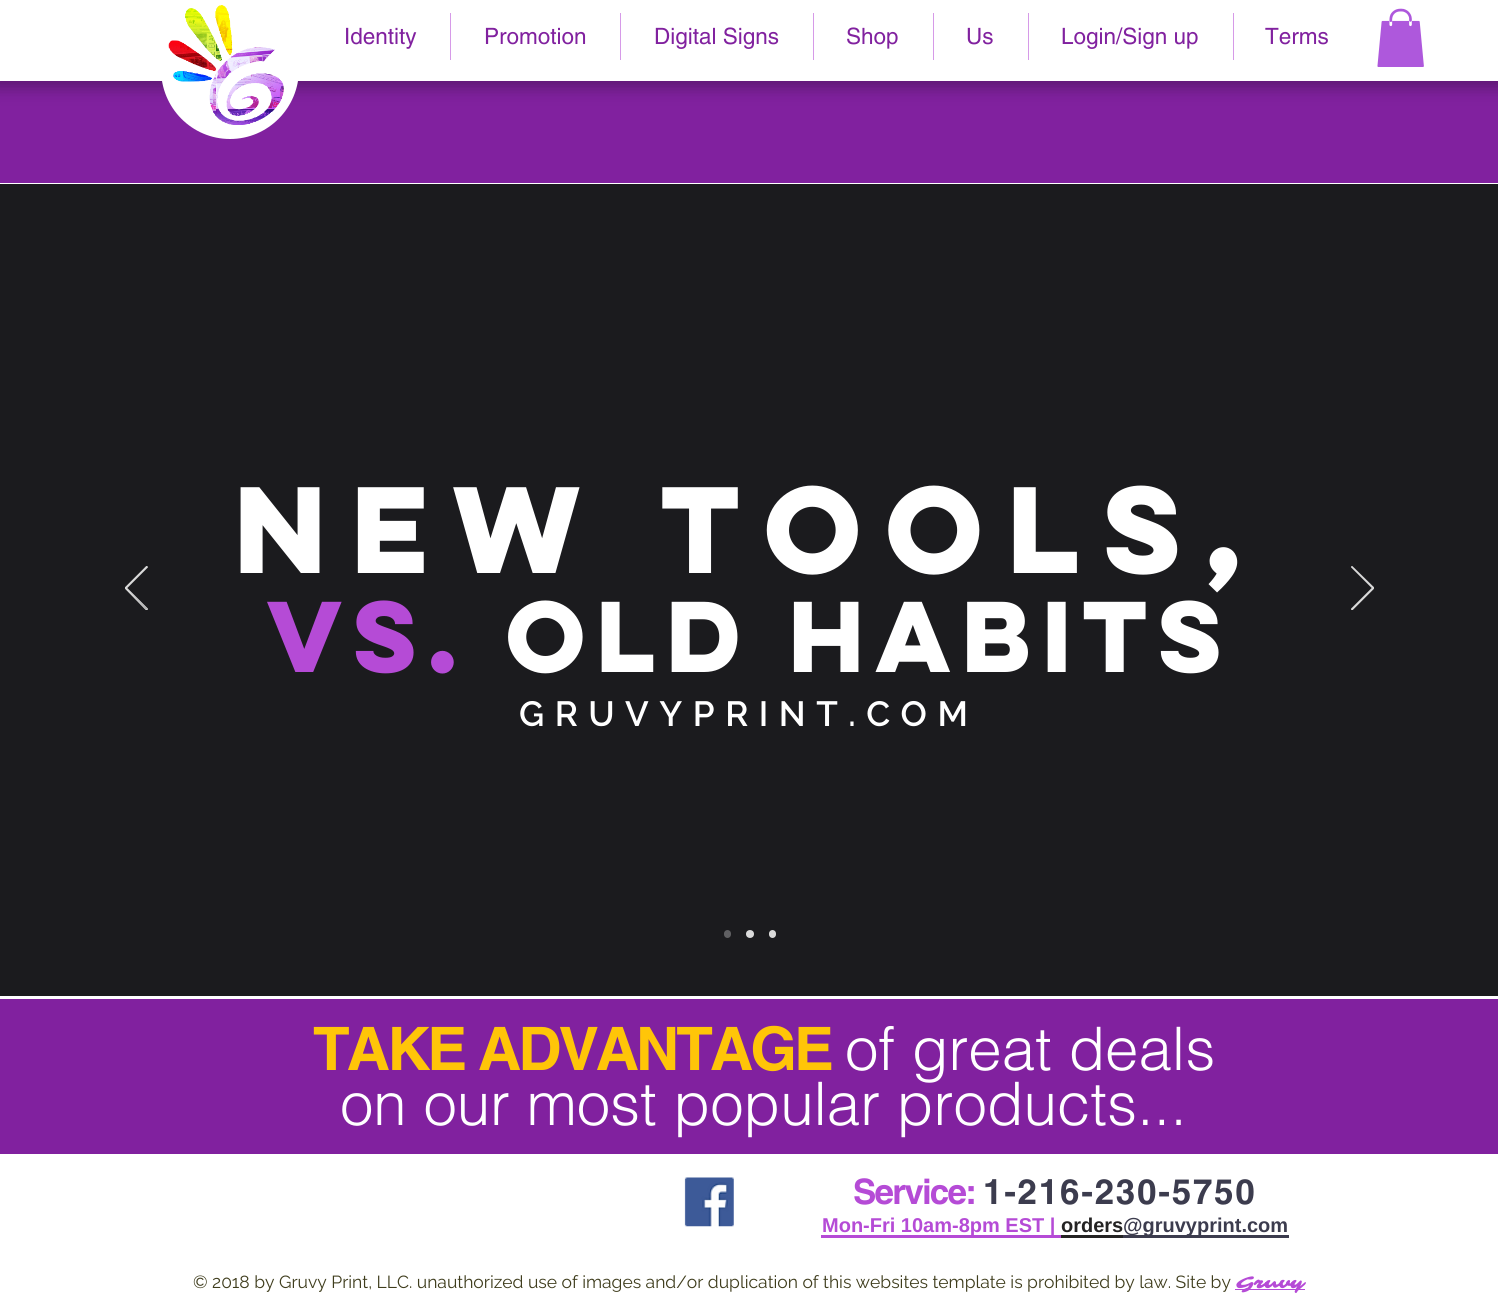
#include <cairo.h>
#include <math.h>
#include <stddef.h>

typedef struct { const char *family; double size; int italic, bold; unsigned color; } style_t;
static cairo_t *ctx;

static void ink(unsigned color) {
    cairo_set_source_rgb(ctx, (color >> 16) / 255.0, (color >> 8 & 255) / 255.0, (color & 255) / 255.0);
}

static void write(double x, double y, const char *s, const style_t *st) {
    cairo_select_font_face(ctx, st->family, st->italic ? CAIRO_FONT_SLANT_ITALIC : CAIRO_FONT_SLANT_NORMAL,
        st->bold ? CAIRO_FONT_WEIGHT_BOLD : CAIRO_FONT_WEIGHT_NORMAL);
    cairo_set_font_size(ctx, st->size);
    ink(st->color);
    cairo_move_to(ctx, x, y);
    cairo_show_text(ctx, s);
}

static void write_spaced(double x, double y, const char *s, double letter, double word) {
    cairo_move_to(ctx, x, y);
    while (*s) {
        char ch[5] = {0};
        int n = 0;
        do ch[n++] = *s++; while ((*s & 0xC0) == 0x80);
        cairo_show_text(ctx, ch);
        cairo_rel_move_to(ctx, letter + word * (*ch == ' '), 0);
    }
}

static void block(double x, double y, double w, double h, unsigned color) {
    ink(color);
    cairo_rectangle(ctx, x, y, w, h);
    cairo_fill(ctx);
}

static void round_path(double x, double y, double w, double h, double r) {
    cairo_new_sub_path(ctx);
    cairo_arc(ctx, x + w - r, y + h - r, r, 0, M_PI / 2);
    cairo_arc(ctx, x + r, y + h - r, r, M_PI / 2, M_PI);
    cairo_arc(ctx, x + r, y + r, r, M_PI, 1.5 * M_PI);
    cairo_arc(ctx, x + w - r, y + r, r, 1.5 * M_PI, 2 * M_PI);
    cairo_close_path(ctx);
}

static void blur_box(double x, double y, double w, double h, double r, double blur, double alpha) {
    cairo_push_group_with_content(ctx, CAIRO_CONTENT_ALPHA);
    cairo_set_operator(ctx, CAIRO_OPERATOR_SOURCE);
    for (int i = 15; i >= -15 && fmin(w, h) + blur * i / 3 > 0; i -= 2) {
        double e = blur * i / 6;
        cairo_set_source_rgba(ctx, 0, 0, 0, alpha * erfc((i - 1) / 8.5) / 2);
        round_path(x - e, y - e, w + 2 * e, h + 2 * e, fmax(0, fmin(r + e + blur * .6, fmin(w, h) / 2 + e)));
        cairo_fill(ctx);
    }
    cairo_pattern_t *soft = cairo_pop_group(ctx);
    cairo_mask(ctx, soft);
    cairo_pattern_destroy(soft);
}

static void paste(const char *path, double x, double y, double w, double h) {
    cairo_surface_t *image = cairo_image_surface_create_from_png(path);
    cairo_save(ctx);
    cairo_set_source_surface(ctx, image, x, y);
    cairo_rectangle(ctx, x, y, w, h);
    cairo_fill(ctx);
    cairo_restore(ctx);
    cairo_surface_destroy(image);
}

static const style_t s1 = {"helvetica", 22.5, 0, 0, 0x81219f};
static const style_t s2 = {"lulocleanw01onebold", 110, 0, 1, 0xffffff};
static const style_t s3 = {"helvetica Light", 60, 0, 0, 0xffffff};
static const style_t s4 = {"Liberation Sans", 20, 0, 1, 0xb54bd6};
static const style_t s5 = {"Liberation Sans", 20, 0, 1, 0x242323};
static const style_t s6 = {"Liberation Sans", 20, 0, 1, 0x3c3c4e};
static const style_t s7 = {"Raleway", 17.5, 0, 0, 0x3f3d1d};
static const style_t s8 = {"Sarina", 17.5, 0, 0, 0xb54bd6};

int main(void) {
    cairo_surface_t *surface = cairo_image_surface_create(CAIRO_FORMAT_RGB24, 1498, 1315);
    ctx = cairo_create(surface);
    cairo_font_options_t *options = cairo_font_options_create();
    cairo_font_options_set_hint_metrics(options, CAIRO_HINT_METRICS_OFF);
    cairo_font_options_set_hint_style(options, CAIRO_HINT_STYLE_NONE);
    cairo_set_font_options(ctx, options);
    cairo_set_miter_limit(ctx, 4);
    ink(0xffffff);
    cairo_paint(ctx);
    block(0, 81, 1498, 102, 0x81219f);
    ink(0x000000);
    blur_box(-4, -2, 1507, 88, 0, 9, 0.34);
    block(0, 0, 1498, 81, 0xffffff);
    cairo_new_path(ctx);
    cairo_move_to(ctx, 299, 69);
    cairo_curve_to(ctx, 299, 108, 268, 139, 230, 139);
    cairo_curve_to(ctx, 192, 139, 161, 108, 161, 69);
    cairo_curve_to(ctx, 161, 31, 192, 0, 230, 0);
    cairo_curve_to(ctx, 268, 0, 299, 31, 299, 69);
    cairo_close_path(ctx);
    cairo_fill(ctx);
    paste("pic1.png", 168, 5, 116, 120);
    write(344, 44, "Identity", &s1);
    block(450, 13, 1, 47, 0xd69ae8);
    write(484, 44, "Promotion", &s1);
    block(620, 13, 1, 47, 0xd69ae8);
    write(654, 44, "Digital Signs", &s1);
    block(813, 13, 1, 47, 0xd69ae8);
    write(846, 44, "Shop", &s1);
    block(933, 13, 1, 47, 0xd69ae8);
    write(966, 44, "Us", &s1);
    block(1028, 13, 1, 47, 0xd69ae8);
    write(1061, 44, "Login/Sign up", &s1);
    block(1233, 13, 1, 47, 0xd69ae8);
    write(1265, 44, "Terms", &s1);
    paste("pic2.png", 1377, 8, 47, 59);
    block(0, 184, 1498, 812, 0x1b1b1e);
    cairo_save(ctx);
    cairo_rectangle(ctx, 125, 566, 23, 44);
    cairo_clip(ctx);
    cairo_new_path(ctx);
    cairo_move_to(ctx, 146.5, 610);
    cairo_line_to(ctx, 125, 588);
    cairo_line_to(ctx, 146.5, 566.5);
    cairo_line_to(ctx, 147.5, 567);
    cairo_line_to(ctx, 126.5, 588);
    cairo_line_to(ctx, 147.5, 609);
    cairo_close_path(ctx);
    ink(0xdadada);
    cairo_set_line_width(ctx, 1.1);
    cairo_stroke(ctx);
    cairo_restore(ctx);
    write(234, 573, "NEW TOOLS,", &s2);
    cairo_set_font_size(ctx, 90);
    ink(0xb54bd6);
    write_spaced(267, 672, "VS.", -9, 0);
    ink(0xffffff);
    write_spaced(506, 672, "OLD HABITS", -9, 0);
    cairo_select_font_face(ctx, "Raleway SemiBold", CAIRO_FONT_SLANT_NORMAL, CAIRO_FONT_WEIGHT_NORMAL);
    cairo_set_font_size(ctx, 35);
    write_spaced(519, 726, "GRUVYPRINT.COM", 10.5, 0);
    cairo_save(ctx);
    cairo_rectangle(ctx, 1351, 566, 23, 44);
    cairo_clip(ctx);
    cairo_new_path(ctx);
    cairo_move_to(ctx, 1352, 610);
    cairo_line_to(ctx, 1374, 588);
    cairo_line_to(ctx, 1352, 566.5);
    cairo_line_to(ctx, 1351.5, 567);
    cairo_line_to(ctx, 1372.5, 588);
    cairo_line_to(ctx, 1351.5, 609);
    cairo_close_path(ctx);
    ink(0xdadada);
    cairo_set_line_width(ctx, 1.1);
    cairo_stroke(ctx);
    cairo_restore(ctx);
    ink(0x5f5f62);
    round_path(724, 930, 7, 8, 3.5);
    cairo_fill(ctx);
    ink(0xdadada);
    cairo_arc(ctx, 750, 934, 4, 0, 2 * M_PI);
    cairo_fill(ctx);
    round_path(769, 930, 7, 8, 3.5);
    cairo_fill(ctx);
    block(0, 999, 1498, 155, 0x81219f);
    cairo_select_font_face(ctx, "helvetica", CAIRO_FONT_SLANT_NORMAL, CAIRO_FONT_WEIGHT_BOLD);
    cairo_set_font_size(ctx, 60);
    ink(0xffc508);
    write_spaced(313, 1070, "TAKE ADVANTAGE", -3, 0);
    write(845, 1070, "of great deals", &s3);
    write(340, 1125, "on our most popular products...", &s3);
    paste("pic3.png", 684, 1177, 50, 50);
    cairo_select_font_face(ctx, "helvetica", CAIRO_FONT_SLANT_NORMAL, CAIRO_FONT_WEIGHT_BOLD);
    cairo_set_font_size(ctx, 35);
    ink(0xb54bd6);
    write_spaced(853, 1204, "Service:", -1.75, 0);
    ink(0x3c3c4e);
    write_spaced(983, 1204, "1-216-230-5750", 1.75, 0);
    block(821, 1235, 240, 3, 0xb54bd6);
    write(822, 1232, "Mon-Fri 10am-8pm EST |", &s4);
    write(1061, 1232, "orders", &s5);
    block(1123, 1235, 166, 3, 0x3c3c4e);
    write(1123, 1232, "@gruvyprint.com", &s6);
    block(1061, 1235, 62, 3, 0x242323);
    write(193, 1288, "© 2018 by Gruvy Print, LLC. unauthorized use of images and/or duplication of this websites template is prohibited by law. Site by", &s7);
    block(1235, 1289, 70, 1, 0xb54bd6);
    write(1235, 1288, "Gruvy", &s8);
    cairo_surface_write_to_png(surface, "screenshot.png");
    cairo_font_options_destroy(options);
    cairo_destroy(ctx);
    cairo_surface_destroy(surface);
    return 0;
}
